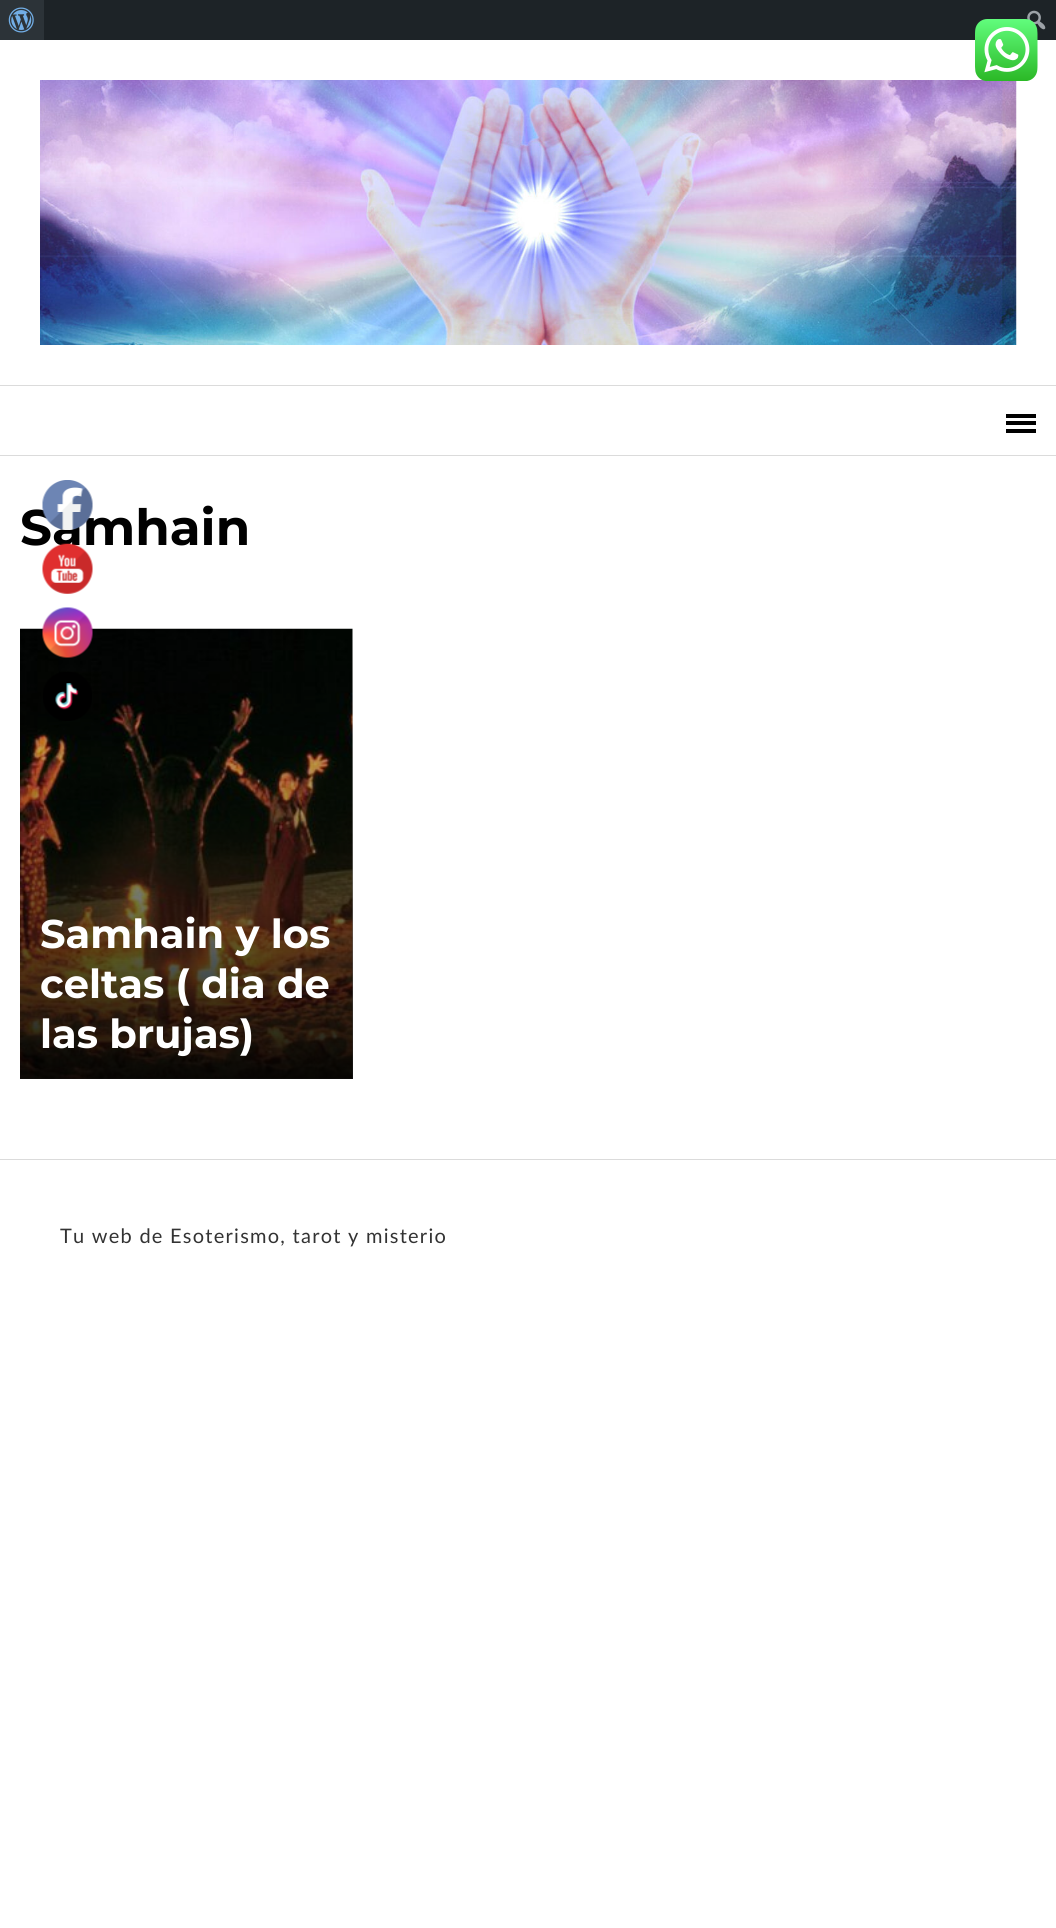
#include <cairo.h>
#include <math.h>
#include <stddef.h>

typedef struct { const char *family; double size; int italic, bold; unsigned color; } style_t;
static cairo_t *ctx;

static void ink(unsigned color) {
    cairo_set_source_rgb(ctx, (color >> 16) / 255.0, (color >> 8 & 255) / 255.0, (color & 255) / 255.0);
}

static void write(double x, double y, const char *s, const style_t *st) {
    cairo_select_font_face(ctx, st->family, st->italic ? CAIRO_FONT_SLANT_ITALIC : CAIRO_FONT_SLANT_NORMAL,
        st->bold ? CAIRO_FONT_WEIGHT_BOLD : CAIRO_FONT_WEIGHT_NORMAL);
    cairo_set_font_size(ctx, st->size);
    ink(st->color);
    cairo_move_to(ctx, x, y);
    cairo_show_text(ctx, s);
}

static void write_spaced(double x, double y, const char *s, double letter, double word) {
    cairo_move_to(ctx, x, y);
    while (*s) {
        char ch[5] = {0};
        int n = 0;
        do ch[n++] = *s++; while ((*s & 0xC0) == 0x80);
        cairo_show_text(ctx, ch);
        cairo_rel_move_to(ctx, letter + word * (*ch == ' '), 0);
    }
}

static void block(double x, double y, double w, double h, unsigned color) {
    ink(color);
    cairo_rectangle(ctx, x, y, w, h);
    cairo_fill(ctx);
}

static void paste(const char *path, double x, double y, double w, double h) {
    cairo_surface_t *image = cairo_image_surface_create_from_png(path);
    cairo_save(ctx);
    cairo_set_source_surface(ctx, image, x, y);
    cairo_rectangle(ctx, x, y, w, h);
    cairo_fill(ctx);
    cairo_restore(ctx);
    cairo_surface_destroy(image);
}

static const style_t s1 = {"Montserrat", 50, 0, 1, 0x000000};
static const style_t s2 = {"Montserrat", 40, 0, 1, 0xffffff};

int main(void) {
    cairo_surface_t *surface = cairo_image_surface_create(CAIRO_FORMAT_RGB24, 1056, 1928);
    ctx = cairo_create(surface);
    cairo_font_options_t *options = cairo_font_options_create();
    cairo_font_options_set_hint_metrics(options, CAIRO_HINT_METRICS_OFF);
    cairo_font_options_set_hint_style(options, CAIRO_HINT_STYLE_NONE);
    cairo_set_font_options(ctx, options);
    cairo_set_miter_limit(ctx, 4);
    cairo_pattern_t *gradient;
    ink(0xffffff);
    cairo_paint(ctx);
    block(44, 0, 1012, 40, 0x1d2327);
    block(0, 0, 44, 40, 0x2c3338);
    paste("pic1.png", 8, 7, 26, 26);
    paste("pic2.png", 1027, 10, 19, 20);
    paste("pic4.png", 40, 80, 977, 265);
    paste("pic3.png", 975, 19, 63, 62);
    block(0, 385, 1056, 1, 0xdbdbdb);
    block(0, 455, 1056, 1, 0xdbdbdb);
    block(1006, 421, 30, 4, 0x000000);
    block(1006, 414, 30, 4, 0x000000);
    block(1006, 429, 30, 4, 0x000000);
    write(20, 545, "Samhain", &s1);
    paste("pic5.png", 42, 480, 51, 50);
    paste("pic6.png", 42, 543, 51, 51);
    paste("pic9.png", 20, 628, 333, 451);
    gradient = cairo_pattern_create_linear(186, 629, 186, 1079);
    cairo_pattern_add_color_stop_rgba(gradient, 0, 0, 0, 0, 0);
    cairo_pattern_add_color_stop_rgba(gradient, 1, 0, 0, 0, 0.9);
    cairo_set_source(ctx, gradient);
    cairo_pattern_destroy(gradient);
    cairo_rectangle(ctx, 20, 640, 333, 439);
    cairo_fill(ctx);
    paste("pic7.png", 42, 607, 51, 51);
    paste("pic8.png", 43, 672, 49, 49);
    write(40, 948, "Samhain y los", &s2);
    write(40, 998, "celtas ( dia de", &s2);
    write(40, 1048, "las brujas)", &s2);
    block(0, 1159, 1056, 1, 0xdbdbdb);
    cairo_select_font_face(ctx, "Lato", CAIRO_FONT_SLANT_NORMAL, CAIRO_FONT_WEIGHT_NORMAL);
    cairo_set_font_size(ctx, 20);
    ink(0x333333);
    write_spaced(60, 1243, "Tu web de Esoterismo, tarot y misterio", 1.25, 0);
    cairo_surface_write_to_png(surface, "screenshot.png");
    cairo_font_options_destroy(options);
    cairo_destroy(ctx);
    cairo_surface_destroy(surface);
    return 0;
}
